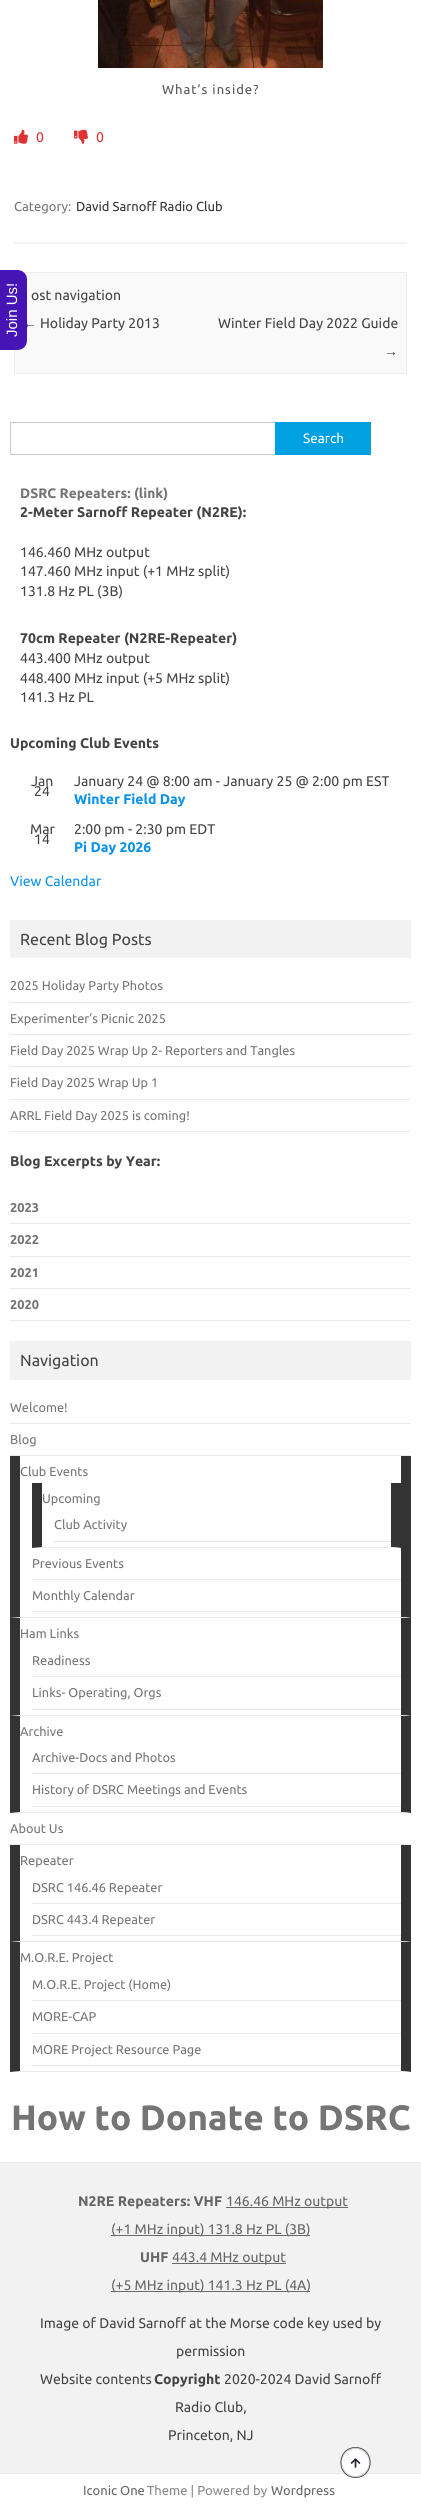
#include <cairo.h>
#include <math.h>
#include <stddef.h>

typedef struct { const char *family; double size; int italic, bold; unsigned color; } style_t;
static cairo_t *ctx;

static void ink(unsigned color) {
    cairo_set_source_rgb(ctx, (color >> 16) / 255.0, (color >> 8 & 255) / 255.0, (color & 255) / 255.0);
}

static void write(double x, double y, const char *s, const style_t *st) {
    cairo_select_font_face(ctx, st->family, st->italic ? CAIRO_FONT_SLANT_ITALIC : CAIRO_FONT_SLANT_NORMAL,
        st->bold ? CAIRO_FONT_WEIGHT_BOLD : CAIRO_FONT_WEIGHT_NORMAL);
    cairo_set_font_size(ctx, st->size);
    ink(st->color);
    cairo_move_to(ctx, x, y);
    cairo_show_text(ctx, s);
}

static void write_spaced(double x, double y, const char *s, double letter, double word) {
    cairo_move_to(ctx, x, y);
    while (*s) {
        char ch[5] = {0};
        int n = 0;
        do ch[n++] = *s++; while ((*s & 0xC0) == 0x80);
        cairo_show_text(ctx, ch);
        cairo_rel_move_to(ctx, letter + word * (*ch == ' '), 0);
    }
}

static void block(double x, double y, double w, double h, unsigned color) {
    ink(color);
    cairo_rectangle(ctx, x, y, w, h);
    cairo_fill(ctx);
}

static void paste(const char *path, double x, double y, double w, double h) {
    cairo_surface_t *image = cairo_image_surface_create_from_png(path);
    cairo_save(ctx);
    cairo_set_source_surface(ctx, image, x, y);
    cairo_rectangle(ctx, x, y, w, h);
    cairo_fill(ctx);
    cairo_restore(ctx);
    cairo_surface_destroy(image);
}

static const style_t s1 = {"Ubuntu", 14, 0, 0, 0xdd3333};
static const style_t s2 = {"Ubuntu", 13, 0, 0, 0x757575};
static const style_t s3 = {"Ubuntu", 13, 0, 0, 0x333333};
static const style_t s4 = {"Ubuntu", 14, 0, 0, 0x444444};
static const style_t s5 = {"Liberation Sans", 14, 0, 0, 0x444444};
static const style_t s6 = {"Ubuntu", 13.5, 0, 0, 0xffffff};
static const style_t s7 = {"Ubuntu", 13.75, 0, 1, 0x757575};
static const style_t s8 = {"Ubuntu", 14, 0, 1, 0x444444};
static const style_t s9 = {"Ubuntu", 14, 0, 1, 0x0b91ea};
static const style_t s10 = {"Ubuntu", 14, 0, 0, 0x0b91ea};
static const style_t s11 = {"Ubuntu", 16, 0, 0, 0x444444};
static const style_t s12 = {"Ubuntu", 12.75, 0, 0, 0x757575};
static const style_t s13 = {"Ubuntu", 12.75, 0, 1, 0x757575};
static const style_t s14 = {"Ubuntu", 35.25, 0, 1, 0x757575};
static const style_t s15 = {"Ubuntu", 14, 0, 1, 0x666666};
static const style_t s16 = {"Ubuntu", 14, 0, 0, 0x666666};
static const style_t s17 = {"Ubuntu", 13, 0, 0, 0x666666};
static const style_t s18 = {"Ubuntu", 13, 0, 0, 0x888888};
static const style_t s19 = {"Liberation Sans", 15, 0, 0, 0xffffff};

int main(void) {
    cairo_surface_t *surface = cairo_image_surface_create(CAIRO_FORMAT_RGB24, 421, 2507);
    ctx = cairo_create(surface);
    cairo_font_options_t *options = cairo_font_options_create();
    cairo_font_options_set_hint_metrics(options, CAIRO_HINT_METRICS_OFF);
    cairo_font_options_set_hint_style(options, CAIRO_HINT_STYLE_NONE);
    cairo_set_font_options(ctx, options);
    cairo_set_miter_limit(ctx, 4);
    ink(0xffffff);
    cairo_paint(ctx);
    block(14, 242, 393, 2, 0xf3f3f3);
    paste("pic1.png", 98, 0, 225, 68);
    cairo_select_font_face(ctx, "Ubuntu", CAIRO_FONT_SLANT_NORMAL, CAIRO_FONT_WEIGHT_NORMAL);
    cairo_set_font_size(ctx, 13);
    ink(0x555555);
    write_spaced(162, 94, "What’s inside?", 1, 0);
    paste("pic2.png", 14, 129, 14, 15);
    write(36, 142, "0", &s1);
    paste("pic3.png", 74, 129, 14, 15);
    write(96, 142, "0", &s1);
    write(14, 211, "Category:", &s2);
    write(76, 211, "David Sarnoff Radio Club", &s3);
    ink(0xf9f9f9);
    cairo_rectangle(ctx, 14.5, 272.5, 392, 101);
    cairo_fill_preserve(ctx);
    ink(0xededed);
    cairo_set_line_width(ctx, 1);
    cairo_stroke(ctx);
    write(31, 300, "ost navigation", &s4);
    write(23, 328, "←", &s5);
    write(40, 328, "Holiday Party 2013", &s4);
    write(218, 328, "Winter Field Day 2022 Guide", &s4);
    write(384, 356, "→", &s5);
    cairo_rectangle(ctx, 10.5, 422.5, 266, 32);
    ink(0xcccccc);
    cairo_stroke(ctx);
    block(275, 422, 96, 33, 0x00a1e0);
    write(303, 443, "Search", &s6);
    write(20, 498, "DSRC Repeaters: (link)", &s7);
    write(20, 517, "2-Meter Sarnoff Repeater (N2RE):", &s8);
    write(20, 557, "146.460 MHz output", &s4);
    write(20, 576, "147.460 MHz input (+1 MHz split)", &s4);
    write(20, 596, "131.8 Hz PL (3B)", &s4);
    write(20, 643, "70cm Repeater (N2RE-Repeater)", &s8);
    write(20, 663, "443.400 MHz output", &s4);
    write(20, 683, "448.400 MHz input (+5 MHz split)", &s4);
    write(20, 702, "141.3 Hz PL", &s4);
    write(10, 748, "Upcoming Club Events", &s8);
    write(31, 786, "Jan", &s4);
    write(34, 796, "24", &s4);
    write(74, 786, "January 24 @ 8:00 am - January 25 @ 2:00 pm EST", &s4);
    write(74, 804, "Winter Field Day", &s9);
    write(30, 834, "Mar", &s4);
    write(34, 844, "14", &s4);
    write(74, 834, "2:00 pm - 2:30 pm EDT", &s4);
    write(74, 852, "Pi Day 2026", &s9);
    write(10, 886, "View Calendar", &s10);
    block(10, 920, 401, 38, 0xf2f2f2);
    write(20, 945, "Recent Blog Posts", &s11);
    block(10, 1002, 401, 1, 0xe9e9e9);
    write(10, 990, "2025 Holiday Party Photos", &s12);
    block(10, 1034, 401, 1, 0xe9e9e9);
    write(10, 1023, "Experimenter’s Picnic 2025", &s12);
    block(10, 1066, 401, 1, 0xe9e9e9);
    write(10, 1055, "Field Day 2025 Wrap Up 2- Reporters and Tangles", &s12);
    block(10, 1099, 401, 1, 0xe9e9e9);
    write(10, 1087, "Field Day 2025 Wrap Up 1", &s12);
    block(10, 1131, 401, 1, 0xe9e9e9);
    write(10, 1120, "ARRL Field Day 2025 is coming!", &s12);
    write(10, 1166, "Blog Excerpts by Year:", &s8);
    block(10, 1223, 401, 1, 0xe9e9e9);
    write(10, 1212, "2023", &s13);
    block(10, 1256, 401, 1, 0xe9e9e9);
    write(10, 1244, "2022", &s13);
    block(10, 1288, 401, 1, 0xe9e9e9);
    write(10, 1277, "2021", &s13);
    block(10, 1320, 401, 1, 0xe9e9e9);
    write(10, 1309, "2020", &s13);
    block(10, 1341, 401, 39, 0xf2f2f2);
    write(20, 1366, "Navigation", &s11);
    block(10, 1423, 401, 1, 0xe9e9e9);
    write(10, 1412, "Welcome!", &s12);
    block(10, 1455, 401, 1, 0xe9e9e9);
    write(10, 1444, "Blog", &s12);
    ink(0x333333);
    cairo_new_path(ctx);
    cairo_move_to(ctx, 411, 1456);
    cairo_line_to(ctx, 411, 1618);
    cairo_line_to(ctx, 401, 1617);
    cairo_line_to(ctx, 401, 1456);
    cairo_close_path(ctx);
    cairo_fill(ctx);
    ink(0xe9e9e9);
    cairo_new_path(ctx);
    cairo_move_to(ctx, 411, 1618);
    cairo_line_to(ctx, 10, 1618);
    cairo_line_to(ctx, 20, 1617);
    cairo_line_to(ctx, 401, 1617);
    cairo_close_path(ctx);
    cairo_fill(ctx);
    ink(0x333333);
    cairo_new_path(ctx);
    cairo_move_to(ctx, 10, 1618);
    cairo_line_to(ctx, 10, 1456);
    cairo_line_to(ctx, 20, 1456);
    cairo_line_to(ctx, 20, 1617);
    cairo_close_path(ctx);
    cairo_fill(ctx);
    write(20, 1476, "Club Events", &s12);
    ink(0x333333);
    cairo_new_path(ctx);
    cairo_move_to(ctx, 401, 1483);
    cairo_line_to(ctx, 401, 1548);
    cairo_line_to(ctx, 391, 1547);
    cairo_line_to(ctx, 391, 1483);
    cairo_close_path(ctx);
    cairo_fill(ctx);
    ink(0xe9e9e9);
    cairo_new_path(ctx);
    cairo_move_to(ctx, 401, 1548);
    cairo_line_to(ctx, 32, 1548);
    cairo_line_to(ctx, 42, 1547);
    cairo_line_to(ctx, 391, 1547);
    cairo_close_path(ctx);
    cairo_fill(ctx);
    ink(0x333333);
    cairo_new_path(ctx);
    cairo_move_to(ctx, 32, 1548);
    cairo_line_to(ctx, 32, 1483);
    cairo_line_to(ctx, 42, 1483);
    cairo_line_to(ctx, 42, 1547);
    cairo_close_path(ctx);
    cairo_fill(ctx);
    write(42, 1503, "Upcoming", &s12);
    block(54, 1541, 337, 1, 0xe9e9e9);
    write(54, 1529, "Club Activity", &s12);
    block(32, 1579, 369, 1, 0xe9e9e9);
    write(32, 1568, "Previous Events", &s12);
    block(32, 1611, 369, 1, 0xe9e9e9);
    write(32, 1600, "Monthly Calendar", &s12);
    ink(0x333333);
    cairo_new_path(ctx);
    cairo_move_to(ctx, 411, 1618);
    cairo_line_to(ctx, 411, 1716);
    cairo_line_to(ctx, 401, 1715);
    cairo_line_to(ctx, 401, 1618);
    cairo_close_path(ctx);
    cairo_fill(ctx);
    ink(0xe9e9e9);
    cairo_new_path(ctx);
    cairo_move_to(ctx, 411, 1716);
    cairo_line_to(ctx, 10, 1716);
    cairo_line_to(ctx, 20, 1715);
    cairo_line_to(ctx, 401, 1715);
    cairo_close_path(ctx);
    cairo_fill(ctx);
    ink(0x333333);
    cairo_new_path(ctx);
    cairo_move_to(ctx, 10, 1716);
    cairo_line_to(ctx, 10, 1618);
    cairo_line_to(ctx, 20, 1618);
    cairo_line_to(ctx, 20, 1715);
    cairo_close_path(ctx);
    cairo_fill(ctx);
    write(20, 1638, "Ham Links", &s12);
    block(32, 1676, 369, 1, 0xe9e9e9);
    write(32, 1665, "Readiness", &s12);
    block(32, 1709, 369, 1, 0xe9e9e9);
    write(32, 1697, "Links- Operating, Orgs", &s12);
    ink(0x333333);
    cairo_new_path(ctx);
    cairo_move_to(ctx, 411, 1716);
    cairo_line_to(ctx, 411, 1813);
    cairo_line_to(ctx, 401, 1812);
    cairo_line_to(ctx, 401, 1716);
    cairo_close_path(ctx);
    cairo_fill(ctx);
    ink(0xe9e9e9);
    cairo_new_path(ctx);
    cairo_move_to(ctx, 411, 1813);
    cairo_line_to(ctx, 10, 1813);
    cairo_line_to(ctx, 20, 1812);
    cairo_line_to(ctx, 401, 1812);
    cairo_close_path(ctx);
    cairo_fill(ctx);
    ink(0x333333);
    cairo_new_path(ctx);
    cairo_move_to(ctx, 10, 1813);
    cairo_line_to(ctx, 10, 1716);
    cairo_line_to(ctx, 20, 1716);
    cairo_line_to(ctx, 20, 1812);
    cairo_close_path(ctx);
    cairo_fill(ctx);
    write(20, 1736, "Archive", &s12);
    block(32, 1773, 369, 1, 0xe9e9e9);
    write(32, 1762, "Archive-Docs and Photos", &s12);
    block(32, 1806, 369, 1, 0xe9e9e9);
    write(32, 1794, "History of DSRC Meetings and Events", &s12);
    block(10, 1844, 401, 1, 0xe9e9e9);
    write(10, 1833, "About Us", &s12);
    ink(0x333333);
    cairo_new_path(ctx);
    cairo_move_to(ctx, 411, 1845);
    cairo_line_to(ctx, 411, 1942);
    cairo_line_to(ctx, 401, 1941);
    cairo_line_to(ctx, 401, 1845);
    cairo_close_path(ctx);
    cairo_fill(ctx);
    ink(0xe9e9e9);
    cairo_new_path(ctx);
    cairo_move_to(ctx, 411, 1942);
    cairo_line_to(ctx, 10, 1942);
    cairo_line_to(ctx, 20, 1941);
    cairo_line_to(ctx, 401, 1941);
    cairo_close_path(ctx);
    cairo_fill(ctx);
    ink(0x333333);
    cairo_new_path(ctx);
    cairo_move_to(ctx, 10, 1942);
    cairo_line_to(ctx, 10, 1845);
    cairo_line_to(ctx, 20, 1845);
    cairo_line_to(ctx, 20, 1941);
    cairo_close_path(ctx);
    cairo_fill(ctx);
    write(20, 1865, "Repeater", &s12);
    block(32, 1903, 369, 1, 0xe9e9e9);
    write(32, 1892, "DSRC 146.46 Repeater", &s12);
    block(32, 1935, 369, 1, 0xe9e9e9);
    write(32, 1924, "DSRC 443.4 Repeater", &s12);
    ink(0x333333);
    cairo_new_path(ctx);
    cairo_move_to(ctx, 411, 1942);
    cairo_line_to(ctx, 411, 2072);
    cairo_line_to(ctx, 401, 2071);
    cairo_line_to(ctx, 401, 1942);
    cairo_close_path(ctx);
    cairo_fill(ctx);
    ink(0xe9e9e9);
    cairo_new_path(ctx);
    cairo_move_to(ctx, 411, 2072);
    cairo_line_to(ctx, 10, 2072);
    cairo_line_to(ctx, 20, 2071);
    cairo_line_to(ctx, 401, 2071);
    cairo_close_path(ctx);
    cairo_fill(ctx);
    ink(0x333333);
    cairo_new_path(ctx);
    cairo_move_to(ctx, 10, 2072);
    cairo_line_to(ctx, 10, 1942);
    cairo_line_to(ctx, 20, 1942);
    cairo_line_to(ctx, 20, 2071);
    cairo_close_path(ctx);
    cairo_fill(ctx);
    write(20, 1962, "M.O.R.E. Project", &s12);
    block(32, 2000, 369, 1, 0xe9e9e9);
    write(32, 1989, "M.O.R.E. Project (Home)", &s12);
    block(32, 2033, 369, 1, 0xe9e9e9);
    write(32, 2021, "MORE-CAP", &s12);
    block(32, 2065, 369, 1, 0xe9e9e9);
    write(32, 2054, "MORE Project Resource Page", &s12);
    write(11, 2130, "How to Donate to DSRC", &s14);
    block(0, 2163, 421, 310, 0xf2f2f2);
    block(0, 2162, 421, 1, 0xededed);
    block(0, 2473, 421, 1, 0xe9e9e9);
    write(78, 2206, "N2RE Repeaters: VHF", &s15);
    block(226, 2207, 122, 1, 0x686868);
    write(226, 2206, "146.46 MHz output", &s16);
    block(111, 2235, 199, 1, 0x686868);
    write(111, 2234, "(+1 MHz input) 131.8 Hz PL (3B)", &s16);
    write(140, 2262, "UHF", &s15);
    block(172, 2263, 114, 1, 0x686868);
    write(172, 2262, "443.4 MHz output", &s16);
    block(111, 2291, 199, 1, 0x686868);
    write(111, 2290, "(+5 MHz input) 141.3 Hz PL (4A)", &s16);
    write(40, 2328, "Image of David Sarnoff at the Morse code key used by", &s4);
    write(176, 2356, "permission", &s4);
    write(40, 2384, "Website contents", &s4);
    write(154, 2384, "Copyright", &s8);
    write(224, 2384, "2020-2024 David Sarnoff", &s4);
    write(175, 2412, "Radio Club,", &s4);
    write(168, 2440, "Princeton, NJ", &s4);
    write(83, 2495, "Iconic One", &s17);
    write(147, 2495, "Theme | Powered by", &s18);
    write(271, 2495, "Wordpress", &s17);
    ink(0x4613b5);
    cairo_new_path(ctx);
    cairo_move_to(ctx, -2, 350);
    cairo_line_to(ctx, -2, 270);
    cairo_line_to(ctx, 17, 270);
    cairo_curve_to(ctx, 23, 270, 27, 274, 27, 280);
    cairo_line_to(ctx, 27, 340);
    cairo_curve_to(ctx, 27, 346, 23, 350, 17, 350);
    cairo_close_path(ctx);
    cairo_fill(ctx);
    cairo_save(ctx);
    cairo_translate(ctx, 17, 337);
    cairo_rotate(ctx, -90 * M_PI / 180);
    write(0, 0, "Join Us!", &s19);
    cairo_restore(ctx);
    ink(0xffffff);
    cairo_new_path(ctx);
    cairo_arc(ctx, 355.5, 2462.5, 14.5, 0, 2 * M_PI);
    cairo_fill_preserve(ctx);
    ink(0xcccccc);
    cairo_set_line_width(ctx, 2);
    cairo_stroke(ctx);
    cairo_new_path(ctx);
    cairo_move_to(ctx, 355.5, 2447.5);
    cairo_curve_to(ctx, 375, 2447.5, 375, 2477.5, 355.5, 2477.5);
    cairo_curve_to(ctx, 336, 2477.5, 336, 2447.5, 355.5, 2447.5);
    ink(0x1f2029);
    cairo_set_line_width(ctx, 0.6);
    cairo_stroke(ctx);
    paste("pic4.png", 350, 2458, 11, 10);
    cairo_surface_write_to_png(surface, "screenshot.png");
    cairo_font_options_destroy(options);
    cairo_destroy(ctx);
    cairo_surface_destroy(surface);
    return 0;
}
